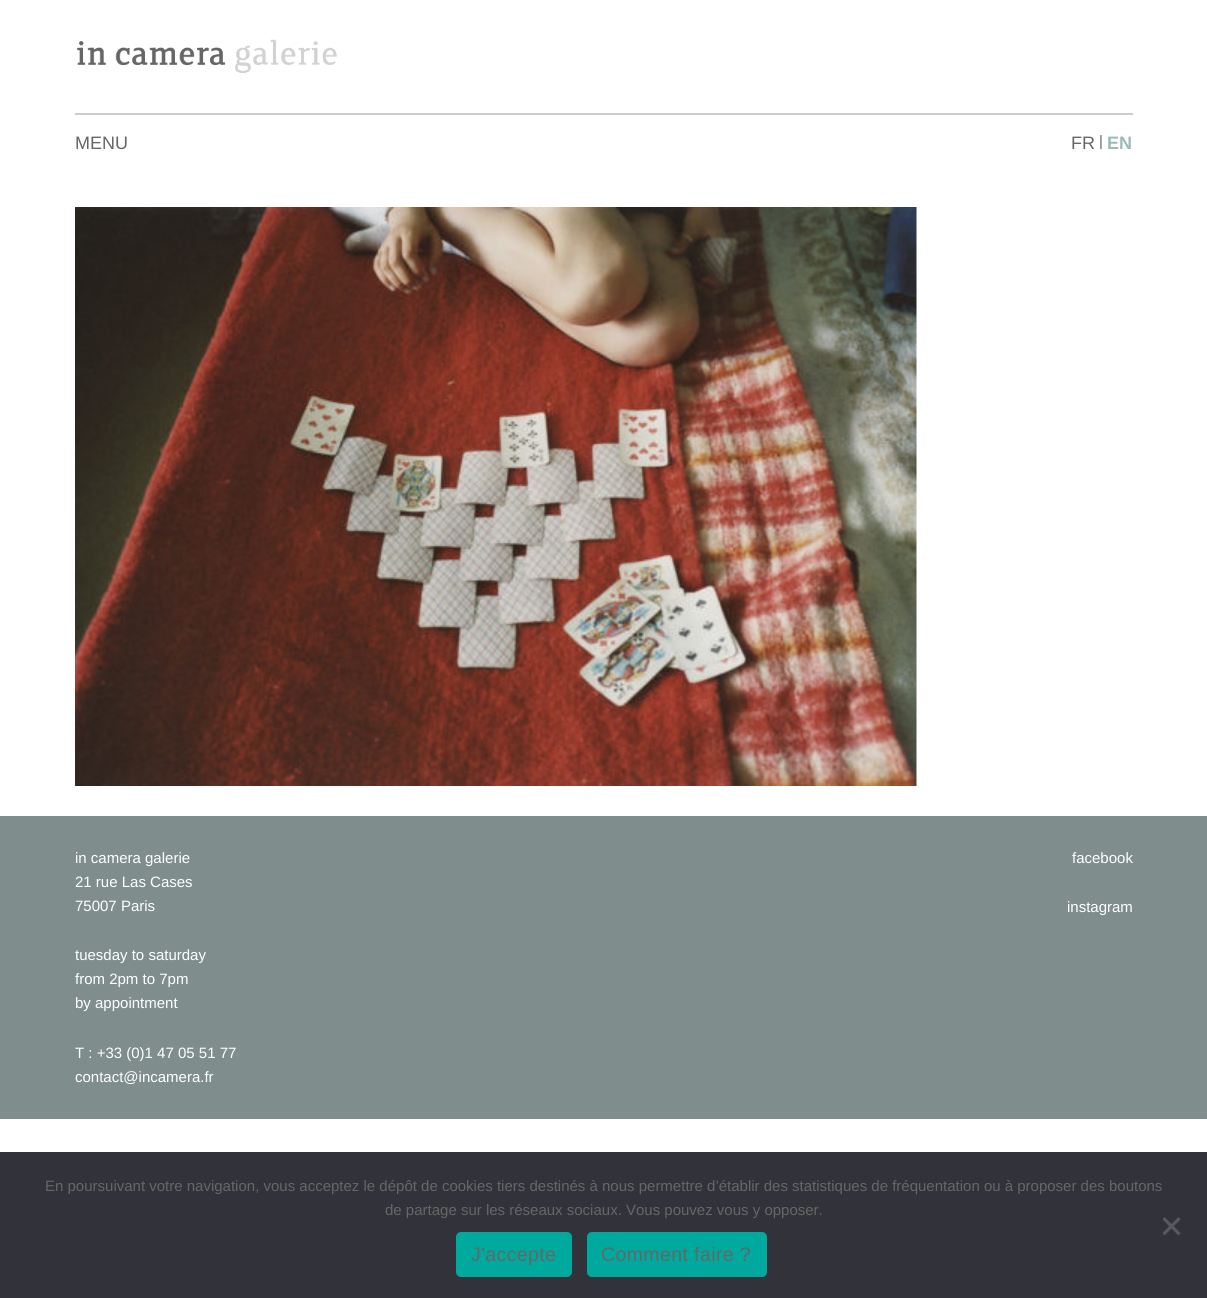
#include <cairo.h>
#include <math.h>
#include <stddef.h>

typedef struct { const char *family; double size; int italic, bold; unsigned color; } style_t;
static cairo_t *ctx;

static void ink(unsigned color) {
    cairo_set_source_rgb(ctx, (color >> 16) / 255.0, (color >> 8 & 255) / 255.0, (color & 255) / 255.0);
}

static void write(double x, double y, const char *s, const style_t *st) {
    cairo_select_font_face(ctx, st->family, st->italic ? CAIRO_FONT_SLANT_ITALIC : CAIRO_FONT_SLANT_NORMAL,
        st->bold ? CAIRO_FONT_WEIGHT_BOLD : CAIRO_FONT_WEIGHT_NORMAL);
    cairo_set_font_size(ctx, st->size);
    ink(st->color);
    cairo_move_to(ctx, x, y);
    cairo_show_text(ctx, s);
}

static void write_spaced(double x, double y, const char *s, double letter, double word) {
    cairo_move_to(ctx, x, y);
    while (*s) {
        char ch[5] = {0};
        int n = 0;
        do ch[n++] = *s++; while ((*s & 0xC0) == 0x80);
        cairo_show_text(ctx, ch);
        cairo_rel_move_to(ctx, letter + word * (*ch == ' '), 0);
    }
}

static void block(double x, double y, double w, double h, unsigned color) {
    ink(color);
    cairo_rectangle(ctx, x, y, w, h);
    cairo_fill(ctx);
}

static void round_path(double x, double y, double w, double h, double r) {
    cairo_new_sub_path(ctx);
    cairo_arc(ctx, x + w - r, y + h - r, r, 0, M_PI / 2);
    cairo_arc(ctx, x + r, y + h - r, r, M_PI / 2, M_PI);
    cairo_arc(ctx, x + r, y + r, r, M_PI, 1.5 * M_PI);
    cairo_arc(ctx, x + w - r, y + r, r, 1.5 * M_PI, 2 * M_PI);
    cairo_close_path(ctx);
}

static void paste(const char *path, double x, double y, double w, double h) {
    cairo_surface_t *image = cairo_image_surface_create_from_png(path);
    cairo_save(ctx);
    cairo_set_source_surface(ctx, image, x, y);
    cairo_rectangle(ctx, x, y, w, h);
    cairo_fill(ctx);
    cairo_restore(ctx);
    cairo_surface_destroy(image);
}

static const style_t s1 = {"Liberation Sans", 18, 0, 0, 0x666666};
static const style_t s2 = {"Liberation Sans", 15, 0, 0, 0x666666};
static const style_t s3 = {"Liberation Sans", 18, 0, 1, 0x9abcb7};
static const style_t s4 = {"Liberation Sans", 15, 0, 0, 0xffffff};

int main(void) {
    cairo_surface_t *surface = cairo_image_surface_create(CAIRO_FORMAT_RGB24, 1207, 1298);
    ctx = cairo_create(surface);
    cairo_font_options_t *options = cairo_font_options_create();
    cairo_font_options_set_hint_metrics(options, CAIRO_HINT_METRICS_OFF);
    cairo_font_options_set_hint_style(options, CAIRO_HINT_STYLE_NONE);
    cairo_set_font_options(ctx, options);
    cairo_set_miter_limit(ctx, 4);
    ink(0xffffff);
    cairo_paint(ctx);
    block(75, 113, 1058, 2, 0xcdcdcd);
    paste("pic1.png", 77, 39, 260, 34);
    write(75, 149, "MENU", &s1);
    write(1071, 149, "FR", &s1);
    write(1099, 146, "|", &s2);
    write(1107, 149, "EN", &s3);
    paste("pic2.png", 75, 207, 842, 579);
    block(0, 816, 1207, 303, 0x7f8e8c);
    write(75, 863, "in camera galerie", &s4);
    write(75, 887, "21 rue Las Cases", &s4);
    write(75, 911, "75007 Paris", &s4);
    write(75, 960, "tuesday to saturday", &s4);
    write(75, 984, "from 2pm to 7pm", &s4);
    write(75, 1008, "by appointment", &s4);
    write(75, 1058, "T : +33 (0)1 47 05 51 77", &s4);
    write(75, 1082, "contact@incamera.fr", &s4);
    write(1072, 863, "facebook", &s4);
    write(1067, 912, "instagram", &s4);
    block(0, 1152, 1207, 146, 0x32323a);
    write(45, 1191, "En poursuivant votre navigation, vous acceptez le dépôt de cookies tiers destinés à nous permettre d’établir des statistiques de fréquentation ou à proposer des boutons", &s2);
    write(385, 1215, "de partage sur les réseaux sociaux. Vous pouvez vous y opposer.", &s2);
    ink(0x59595d);
    cairo_new_path(ctx);
    cairo_move_to(ctx, 1178.5, 1217);
    cairo_line_to(ctx, 1180.5, 1219.5);
    cairo_line_to(ctx, 1164.5, 1235.5);
    cairo_line_to(ctx, 1162.5, 1233);
    cairo_close_path(ctx);
    cairo_fill(ctx);
    cairo_new_path(ctx);
    cairo_move_to(ctx, 1162.5, 1219.5);
    cairo_line_to(ctx, 1164.5, 1217);
    cairo_line_to(ctx, 1180.5, 1233);
    cairo_line_to(ctx, 1178.5, 1235.5);
    cairo_close_path(ctx);
    cairo_fill(ctx);
    ink(0x00a99d);
    round_path(456, 1232, 116, 45, 5);
    cairo_fill(ctx);
    cairo_set_font_size(ctx, 19.5);
    ink(0x666666);
    write_spaced(471, 1261, "J'accepte", 0.4, 0);
    ink(0x00a99d);
    round_path(587, 1232, 180, 45, 5);
    cairo_fill(ctx);
    ink(0x666666);
    write_spaced(601, 1261, "Comment faire ?", 0.4, 0);
    cairo_surface_write_to_png(surface, "screenshot.png");
    cairo_font_options_destroy(options);
    cairo_destroy(ctx);
    cairo_surface_destroy(surface);
    return 0;
}
